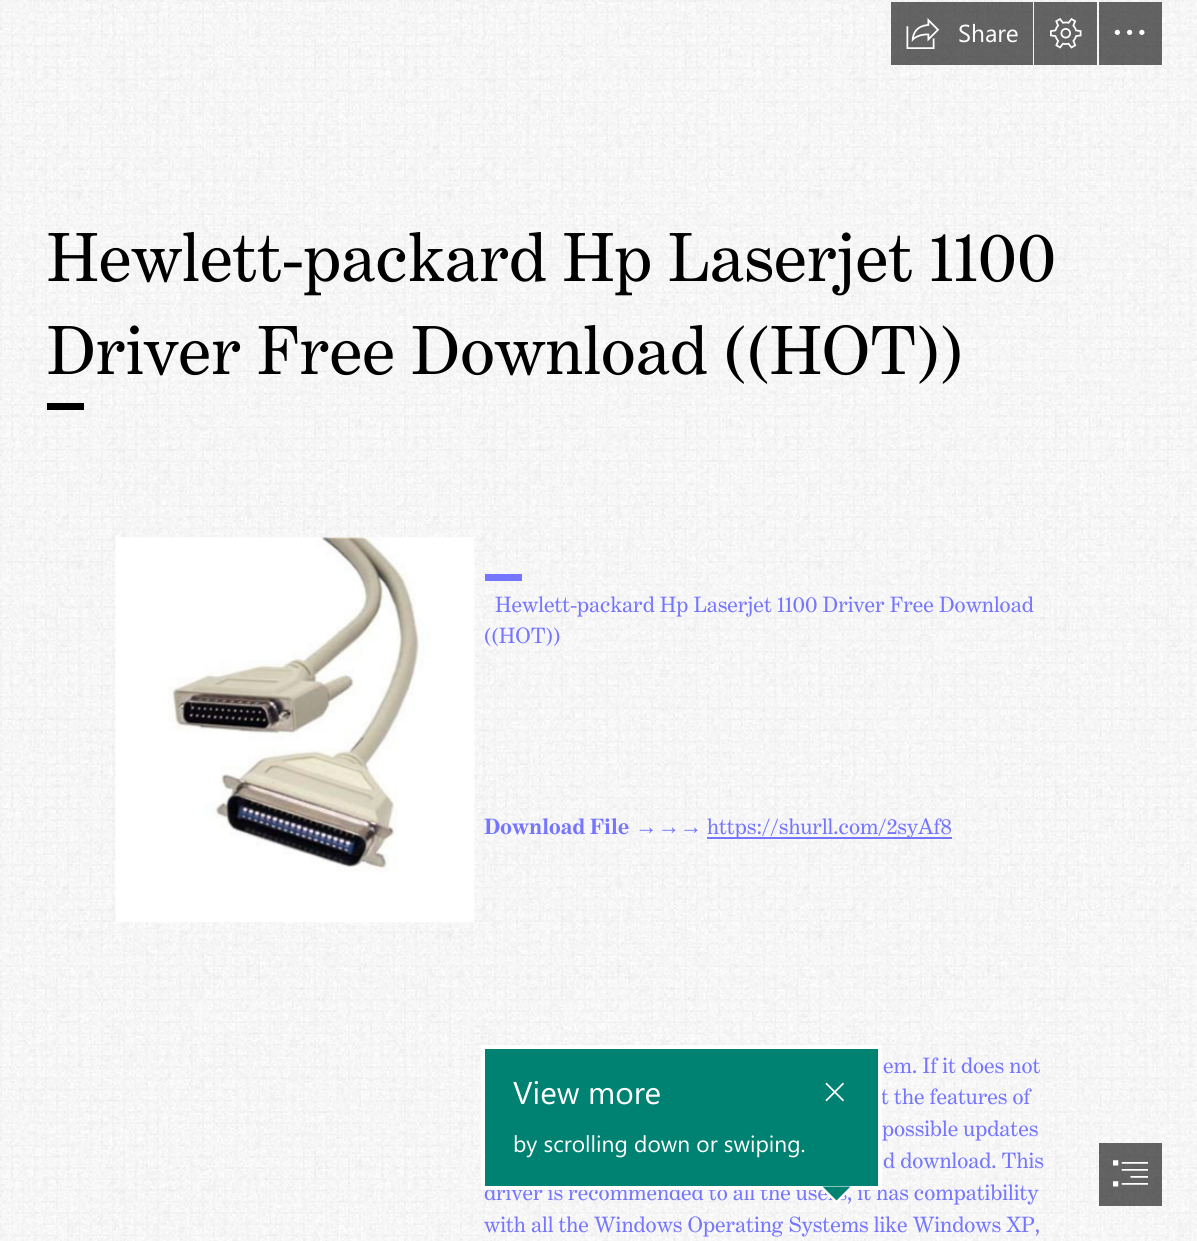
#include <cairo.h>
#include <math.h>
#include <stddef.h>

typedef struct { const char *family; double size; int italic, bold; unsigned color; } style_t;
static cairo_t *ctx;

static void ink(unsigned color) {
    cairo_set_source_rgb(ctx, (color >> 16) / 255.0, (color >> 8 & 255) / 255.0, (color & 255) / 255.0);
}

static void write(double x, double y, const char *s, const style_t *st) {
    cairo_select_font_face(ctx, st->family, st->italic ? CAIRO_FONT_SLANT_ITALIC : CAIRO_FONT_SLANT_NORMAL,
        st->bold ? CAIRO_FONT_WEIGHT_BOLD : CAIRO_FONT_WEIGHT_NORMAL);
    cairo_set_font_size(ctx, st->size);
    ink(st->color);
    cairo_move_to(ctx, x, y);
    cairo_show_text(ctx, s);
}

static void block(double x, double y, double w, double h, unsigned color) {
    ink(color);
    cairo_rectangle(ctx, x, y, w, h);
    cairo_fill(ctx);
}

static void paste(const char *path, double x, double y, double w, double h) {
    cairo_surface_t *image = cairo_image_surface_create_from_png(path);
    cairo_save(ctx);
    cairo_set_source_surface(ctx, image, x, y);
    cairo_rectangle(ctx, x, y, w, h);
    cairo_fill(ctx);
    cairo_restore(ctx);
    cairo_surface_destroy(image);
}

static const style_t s1 = {"Segoe UI", 24.5, 0, 0, 0xffffff};
static const style_t s2 = {"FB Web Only", 70.1, 0, 0, 0x000000};
static const style_t s3 = {"FB Web Only", 22.4, 0, 0, 0x7575ff};
static const style_t s4 = {"FB Web Only", 22.4, 0, 1, 0x7575ff};
static const style_t s5 = {"Liberation Serif", 22.4, 0, 0, 0x7575ff};
static const style_t s6 = {"Segoe UI", 31.5, 0, 0, 0xffffff};
static const style_t s7 = {"Segoe UI", 22.75, 0, 0, 0xffffff};

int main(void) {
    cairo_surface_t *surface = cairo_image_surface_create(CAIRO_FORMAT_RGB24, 1197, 1241);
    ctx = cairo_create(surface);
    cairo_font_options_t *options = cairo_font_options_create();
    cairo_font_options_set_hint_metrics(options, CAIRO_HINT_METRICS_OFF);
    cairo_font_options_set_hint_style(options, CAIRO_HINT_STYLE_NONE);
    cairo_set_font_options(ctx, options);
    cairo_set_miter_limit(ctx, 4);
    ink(0xeaeaea);
    cairo_paint(ctx);
    paste("pic4.png", 0, 0, 1197, 1241);
    cairo_set_source_rgba(ctx, 0, 0, 0, 0.6);
    cairo_rectangle(ctx, 891, 2, 142, 63);
    cairo_fill(ctx);
    paste("pic1.png", 906, 18, 34, 31);
    write(958, 42, "Share", &s1);
    cairo_set_source_rgba(ctx, 0, 0, 0, 0.6);
    cairo_rectangle(ctx, 1034, 2, 63, 63);
    cairo_fill(ctx);
    paste("pic2.png", 1050, 18, 32, 31);
    cairo_rectangle(ctx, 1099, 2, 63, 63);
    cairo_fill(ctx);
    paste("pic3.png", 1114, 29, 31, 6);
    write(47, 281, "Hewlett-packard Hp Laserjet 1100", &s2);
    write(47, 374, "Driver Free Download ((HOT))", &s2);
    block(47, 403, 37, 7, 0x000000);
    paste("pic5.png", 115, 537, 360, 386);
    block(485, 574, 37, 7, 0x7575ff);
    write(495, 612, "Hewlett-packard Hp Laserjet 1100 Driver Free Download", &s3);
    write(484, 643, "((HOT))", &s3);
    write(484, 834, "Download File", &s4);
    write(635, 834, "→→→", &s5);
    block(707, 837, 245, 2, 0x7575ff);
    write(707, 834, "https://shurll.com/2syAf8", &s3);
    write(883, 1073, "em. If it does not", &s3);
    write(881, 1104, "t the features of", &s3);
    write(882, 1136, "possible updates", &s3);
    write(883, 1168, "d download. This", &s3);
    write(484, 1200, "driver is recommended to all the users, it has compatibility", &s3);
    write(484, 1232, "with all the Windows Operating Systems like Windows XP,", &s3);
    ink(0x008272);
    cairo_rectangle(ctx, 483, 1047, 397, 141);
    cairo_fill_preserve(ctx);
    ink(0xffffff);
    cairo_set_line_width(ctx, 4);
    cairo_stroke(ctx);
    write(513, 1104, "View more", &s6);
    write(513, 1152, "by scrolling down or swiping.", &s7);
    paste("pic6.png", 825, 1082, 19, 20);
    cairo_new_path(ctx);
    cairo_move_to(ctx, 819, 1186.5);
    cairo_line_to(ctx, 854, 1186.5);
    cairo_line_to(ctx, 836.5, 1204);
    cairo_close_path(ctx);
    cairo_fill(ctx);
    ink(0x008272);
    cairo_new_path(ctx);
    cairo_move_to(ctx, 822.5, 1186.5);
    cairo_line_to(ctx, 850.5, 1186.5);
    cairo_line_to(ctx, 836.5, 1200.5);
    cairo_close_path(ctx);
    cairo_fill(ctx);
    cairo_set_source_rgba(ctx, 0, 0, 0, 0.6);
    cairo_rectangle(ctx, 1099, 1143, 63, 63);
    cairo_fill(ctx);
    paste("pic7.png", 1113, 1160, 35, 27);
    cairo_surface_write_to_png(surface, "screenshot.png");
    cairo_font_options_destroy(options);
    cairo_destroy(ctx);
    cairo_surface_destroy(surface);
    return 0;
}
